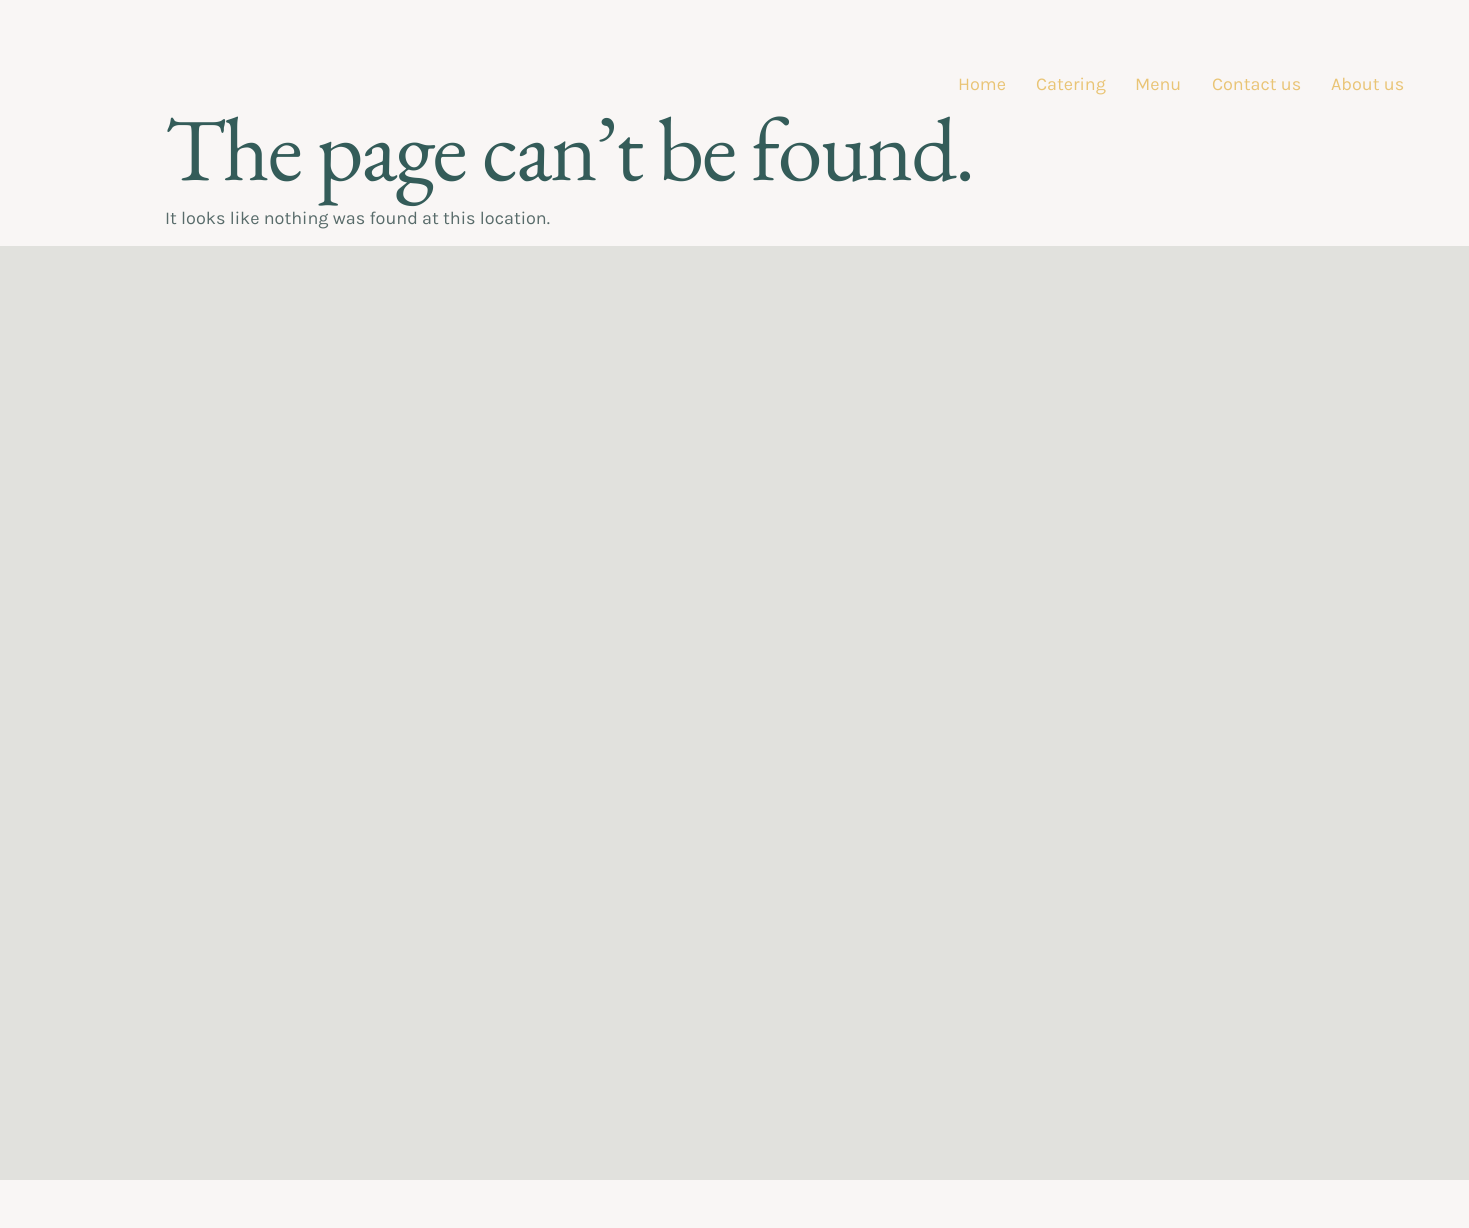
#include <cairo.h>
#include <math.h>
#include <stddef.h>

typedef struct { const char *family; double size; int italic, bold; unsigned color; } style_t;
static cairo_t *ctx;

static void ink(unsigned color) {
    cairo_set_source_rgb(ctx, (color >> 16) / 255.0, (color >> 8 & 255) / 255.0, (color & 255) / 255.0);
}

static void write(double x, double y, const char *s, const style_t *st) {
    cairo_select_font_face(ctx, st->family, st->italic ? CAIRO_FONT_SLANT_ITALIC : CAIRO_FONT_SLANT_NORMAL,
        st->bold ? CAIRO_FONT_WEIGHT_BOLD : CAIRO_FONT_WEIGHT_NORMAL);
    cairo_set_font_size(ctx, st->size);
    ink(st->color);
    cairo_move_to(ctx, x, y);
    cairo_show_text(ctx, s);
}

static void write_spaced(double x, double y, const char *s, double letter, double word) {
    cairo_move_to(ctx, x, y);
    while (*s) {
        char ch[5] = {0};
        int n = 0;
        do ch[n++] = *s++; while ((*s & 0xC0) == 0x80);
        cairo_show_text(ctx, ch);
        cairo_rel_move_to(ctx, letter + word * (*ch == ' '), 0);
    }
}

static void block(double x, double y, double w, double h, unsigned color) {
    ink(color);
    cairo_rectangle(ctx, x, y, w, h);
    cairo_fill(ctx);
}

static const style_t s1 = {"Karla", 18, 0, 0, 0xe9c475};
static const style_t s2 = {"Karla", 18, 0, 0, 0x586b6a};

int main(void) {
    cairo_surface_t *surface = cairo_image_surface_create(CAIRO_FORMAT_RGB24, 1469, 1228);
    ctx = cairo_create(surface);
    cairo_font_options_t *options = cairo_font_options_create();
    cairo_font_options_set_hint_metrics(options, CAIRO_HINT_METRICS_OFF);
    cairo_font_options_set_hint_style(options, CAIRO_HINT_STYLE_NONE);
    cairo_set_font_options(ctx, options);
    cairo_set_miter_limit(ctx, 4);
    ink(0xf9f6f5);
    cairo_paint(ctx);
    write(958, 90, "Home", &s1);
    write(1036, 90, "Catering", &s1);
    write(1135, 90, "Menu", &s1);
    write(1212, 90, "Contact us", &s1);
    write(1331, 90, "About us", &s1);
    cairo_select_font_face(ctx, "EB Garamond", CAIRO_FONT_SLANT_NORMAL, CAIRO_FONT_WEIGHT_NORMAL);
    cairo_set_font_size(ctx, 90);
    ink(0x345c59);
    write_spaced(165, 180, "The page can’t be found.", -2, 0);
    write(165, 224, "It looks like nothing was found at this location.", &s2);
    block(0, 246, 1469, 934, 0xe1e1dd);
    cairo_surface_write_to_png(surface, "screenshot.png");
    cairo_font_options_destroy(options);
    cairo_destroy(ctx);
    cairo_surface_destroy(surface);
    return 0;
}
